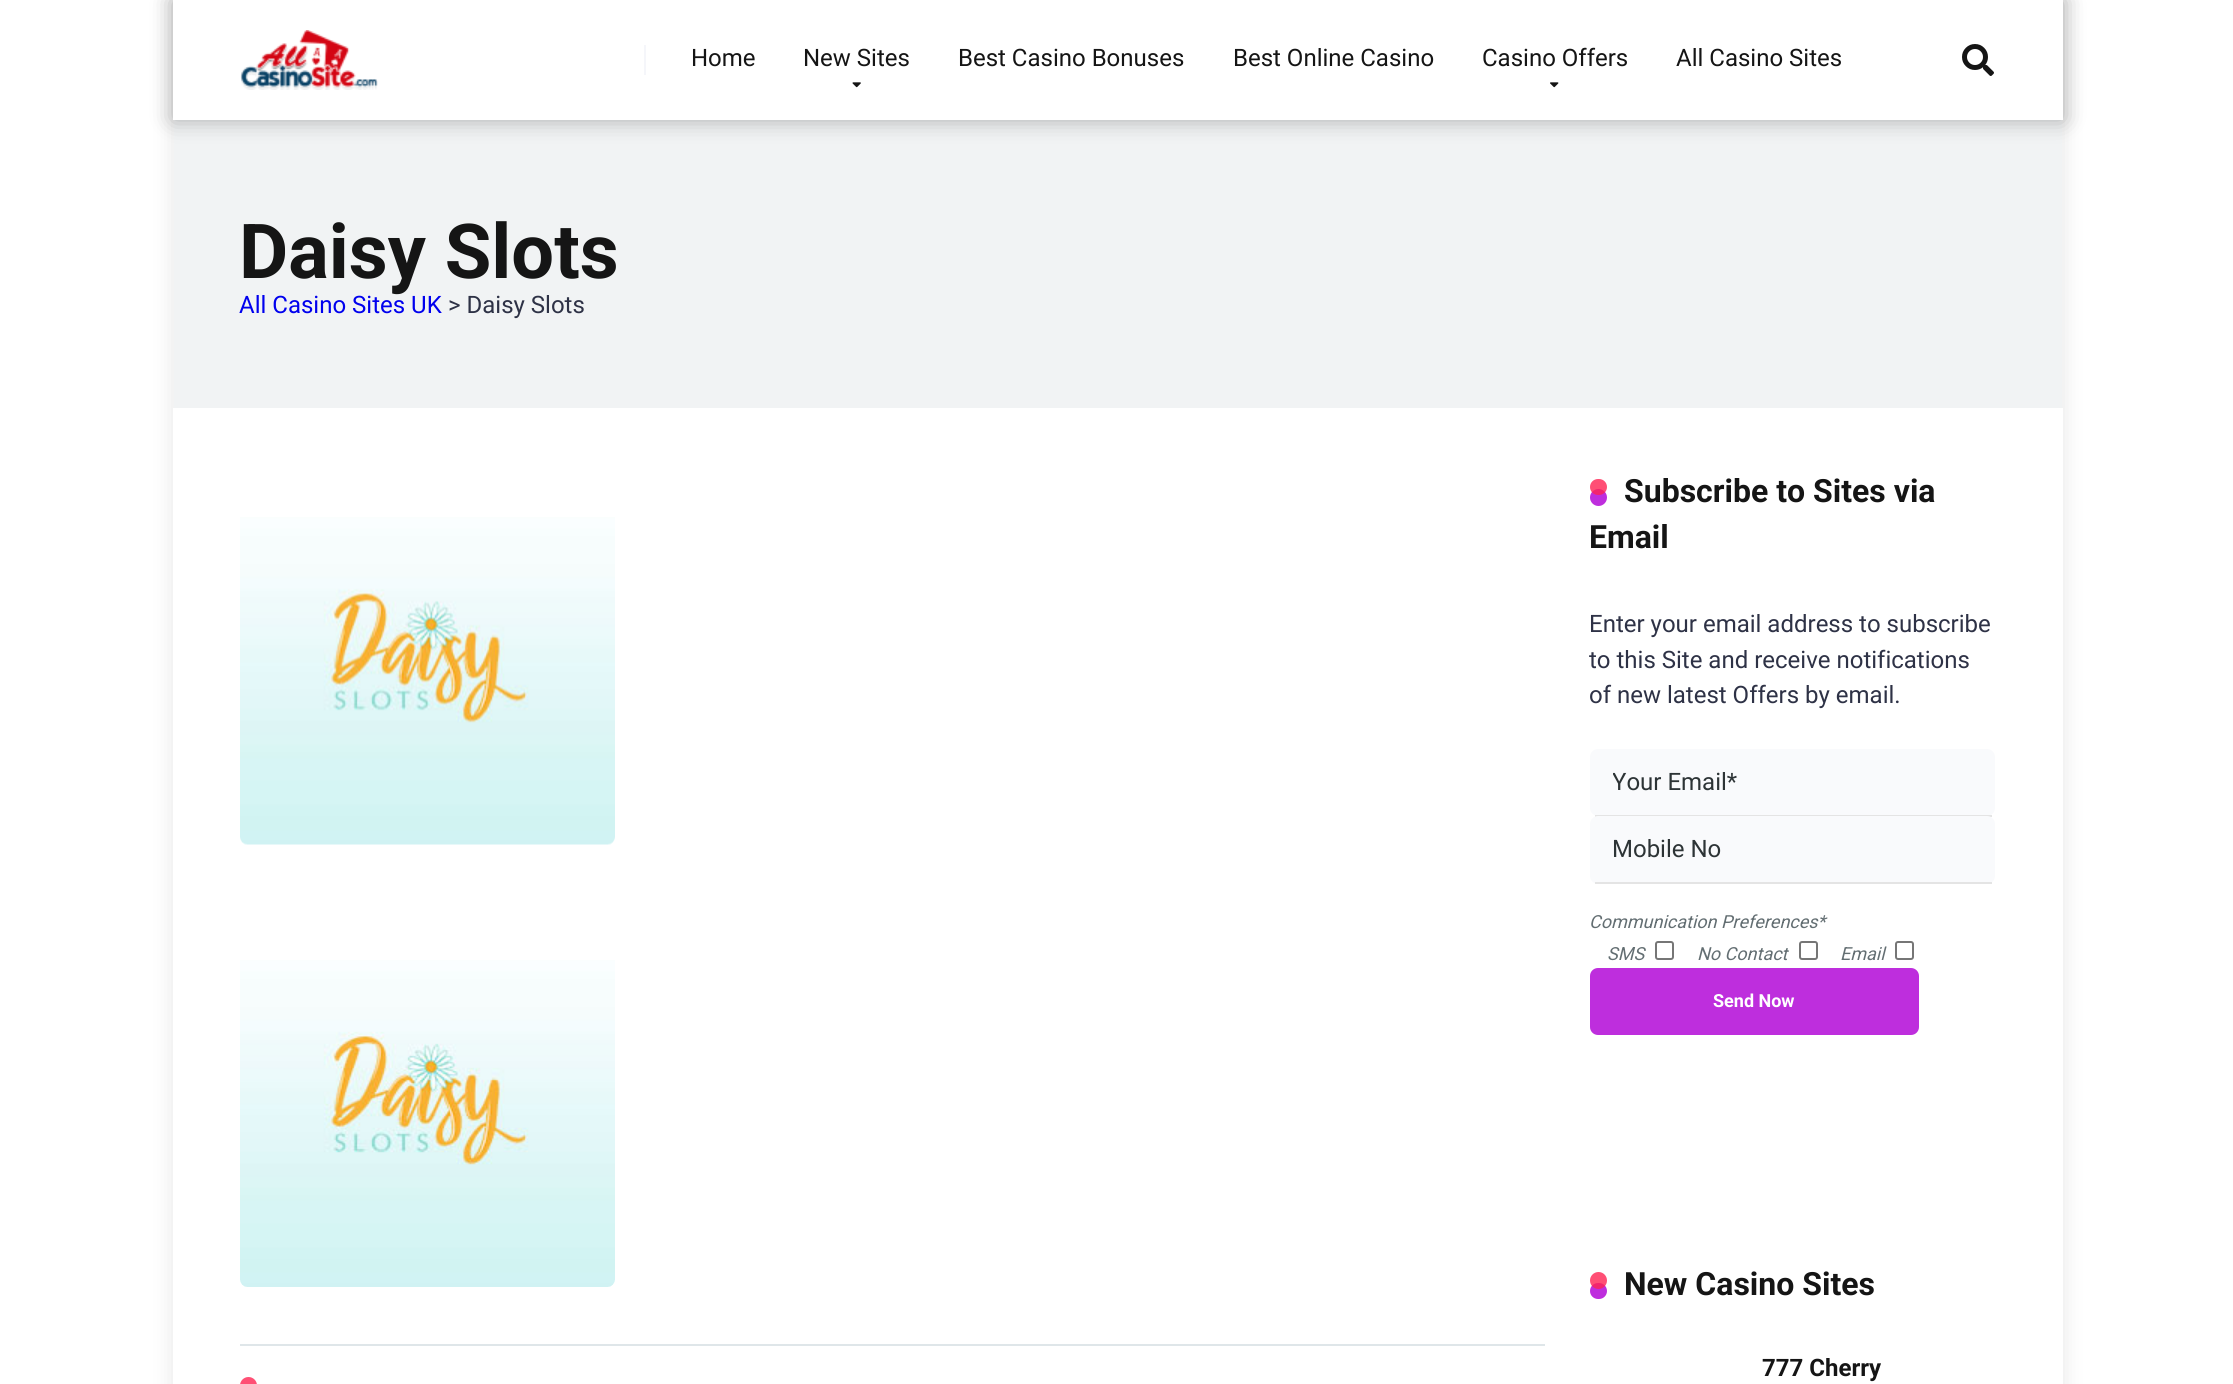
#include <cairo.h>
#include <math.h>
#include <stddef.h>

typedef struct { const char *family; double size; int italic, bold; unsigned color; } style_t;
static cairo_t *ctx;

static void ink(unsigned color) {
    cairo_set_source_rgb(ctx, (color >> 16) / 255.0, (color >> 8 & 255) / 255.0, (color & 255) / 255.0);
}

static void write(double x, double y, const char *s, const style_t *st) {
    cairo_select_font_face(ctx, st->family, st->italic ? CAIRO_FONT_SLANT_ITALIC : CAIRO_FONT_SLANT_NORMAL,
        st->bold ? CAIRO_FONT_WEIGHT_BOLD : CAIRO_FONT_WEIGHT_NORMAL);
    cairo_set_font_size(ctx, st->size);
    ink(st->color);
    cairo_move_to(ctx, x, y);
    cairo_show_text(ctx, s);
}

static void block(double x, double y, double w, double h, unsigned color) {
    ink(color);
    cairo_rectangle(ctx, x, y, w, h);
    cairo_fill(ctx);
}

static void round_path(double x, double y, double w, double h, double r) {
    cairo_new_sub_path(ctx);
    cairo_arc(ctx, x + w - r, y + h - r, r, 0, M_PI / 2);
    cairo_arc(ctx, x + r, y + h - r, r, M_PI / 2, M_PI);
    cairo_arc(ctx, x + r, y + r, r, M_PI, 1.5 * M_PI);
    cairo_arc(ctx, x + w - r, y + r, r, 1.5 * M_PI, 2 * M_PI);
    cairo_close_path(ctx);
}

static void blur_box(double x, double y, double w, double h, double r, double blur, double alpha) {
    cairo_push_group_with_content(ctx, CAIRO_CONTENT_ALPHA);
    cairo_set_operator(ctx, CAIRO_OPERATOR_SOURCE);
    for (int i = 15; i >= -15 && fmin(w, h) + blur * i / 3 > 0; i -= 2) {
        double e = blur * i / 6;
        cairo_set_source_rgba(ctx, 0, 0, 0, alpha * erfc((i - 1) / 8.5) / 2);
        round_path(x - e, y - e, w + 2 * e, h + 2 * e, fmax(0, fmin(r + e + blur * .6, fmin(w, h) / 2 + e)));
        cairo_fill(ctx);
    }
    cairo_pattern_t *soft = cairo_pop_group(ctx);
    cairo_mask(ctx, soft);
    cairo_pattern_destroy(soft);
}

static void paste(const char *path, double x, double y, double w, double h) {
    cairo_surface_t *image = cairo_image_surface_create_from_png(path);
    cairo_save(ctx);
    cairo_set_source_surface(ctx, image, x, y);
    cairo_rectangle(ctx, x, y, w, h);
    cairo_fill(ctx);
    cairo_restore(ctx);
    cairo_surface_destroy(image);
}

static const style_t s1 = {"Roboto", 24, 0, 0, 0x151515};
static const style_t s2 = {"Roboto", 75.75, 0, 1, 0x151515};
static const style_t s3 = {"Roboto", 24, 0, 0, 0x0000ee};
static const style_t s4 = {"Roboto", 24, 0, 0, 0x2e3246};
static const style_t s5 = {"Roboto", 32, 0, 1, 0x151515};
static const style_t s6 = {"Roboto", 24, 0, 0, 0x2d3436};
static const style_t s7 = {"Roboto", 18, 1, 0, 0x636e72};
static const style_t s8 = {"Roboto", 18, 0, 1, 0xffffff};
static const style_t s9 = {"Roboto", 24, 0, 1, 0x151515};

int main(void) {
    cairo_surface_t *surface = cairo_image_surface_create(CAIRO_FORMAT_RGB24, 2233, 1384);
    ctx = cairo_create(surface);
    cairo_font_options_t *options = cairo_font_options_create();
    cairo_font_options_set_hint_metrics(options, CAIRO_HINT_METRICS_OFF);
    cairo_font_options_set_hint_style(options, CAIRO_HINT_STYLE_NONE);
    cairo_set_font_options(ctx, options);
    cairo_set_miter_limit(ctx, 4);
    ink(0xffffff);
    cairo_paint(ctx);
    ink(0x000000);
    blur_box(173, 0, 1890, 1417, 0, 11, 0.1);
    block(173, 408, 1890, 976, 0xffffff);
    block(174, 120, 1888, 288, 0xf1f3f4);
    ink(0x000000);
    blur_box(173, 0, 1890, 120, 0, 11, 0.3);
    block(173, 0, 1890, 120, 0xffffff);
    paste("pic1.png", 240, 30, 138, 60);
    block(644, 45, 2, 30, 0xf5f6fa);
    write(691, 66, "Home", &s1);
    write(803, 66, "New Sites", &s1);
    paste("pic2.png", 852, 82, 9, 6);
    write(958, 66, "Best Casino Bonuses", &s1);
    write(1233, 66, "Best Online Casino", &s1);
    write(1482, 66, "Casino Offers", &s1);
    paste("pic3.png", 1550, 82, 9, 6);
    write(1676, 66, "All Casino Sites", &s1);
    paste("pic4.png", 1962, 44, 32, 32);
    write(239, 278, "Daisy Slots", &s2);
    write(239, 313, "All Casino Sites UK", &s3);
    write(448, 313, "> Daisy Slots", &s4);
    paste("pic5.png", 240, 517, 375, 328);
    block(240, 1344, 1305, 2, 0xdfe6e9);
    paste("pic6.png", 240, 960, 375, 327);
    ink(0xff5075);
    round_path(240, 1377, 17, 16, 8.5);
    cairo_fill(ctx);
    ink(0xbe2edd);
    cairo_arc(ctx, 1598.5, 497.5, 8.5, 0, 2 * M_PI);
    cairo_fill(ctx);
    cairo_set_source_rgba(ctx, 1, 0.141, 0.325, 0.8);
    round_path(1590, 479, 17, 16, 8);
    cairo_fill(ctx);
    write(1624, 502, "Subscribe to Sites via", &s5);
    write(1589, 548, "Email", &s5);
    write(1589, 632, "Enter your email address to subscribe", &s4);
    write(1589, 668, "to this Site and receive notifications", &s4);
    write(1589, 703, "of new latest Offers by email.", &s4);
    ink(0xf9fafc);
    round_path(1590, 749, 405, 67, 8);
    cairo_fill(ctx);
    block(1595, 815, 397, 2, 0xe4e4e4);
    cairo_save(ctx);
    cairo_rectangle(ctx, 1613, 768, 360, 29);
    cairo_clip(ctx);
    write(1612, 790, "Your Email*", &s6);
    cairo_restore(ctx);
    ink(0xf9fafc);
    round_path(1590, 816, 405, 68, 8);
    cairo_fill(ctx);
    block(1595, 882, 397, 2, 0xe4e4e4);
    write(1612, 857, "Mobile No", &s6);
    write(1589, 928, "Communication Preferences*", &s7);
    write(1607, 960, "SMS", &s7);
    round_path(1656, 942, 17, 17, 2);
    ink(0x767676);
    cairo_stroke(ctx);
    write(1697, 960, "No Contact", &s7);
    round_path(1800, 942, 17, 17, 2);
    ink(0x767676);
    cairo_stroke(ctx);
    write(1840, 960, "Email", &s7);
    round_path(1896, 942, 17, 17, 2);
    ink(0x767676);
    cairo_stroke(ctx);
    ink(0xbe2edd);
    round_path(1590, 968, 329, 67, 8);
    cairo_fill(ctx);
    write(1713, 1007, "Send Now", &s8);
    ink(0xbe2edd);
    round_path(1590, 1283, 17, 16, 8);
    cairo_fill(ctx);
    cairo_set_source_rgba(ctx, 1, 0.141, 0.325, 0.8);
    cairo_arc(ctx, 1598.5, 1280.5, 8.5, 0, 2 * M_PI);
    cairo_fill(ctx);
    write(1624, 1295, "New Casino Sites", &s5);
    write(1762, 1376, "777 Cherry", &s9);
    cairo_surface_write_to_png(surface, "screenshot.png");
    cairo_font_options_destroy(options);
    cairo_destroy(ctx);
    cairo_surface_destroy(surface);
    return 0;
}
